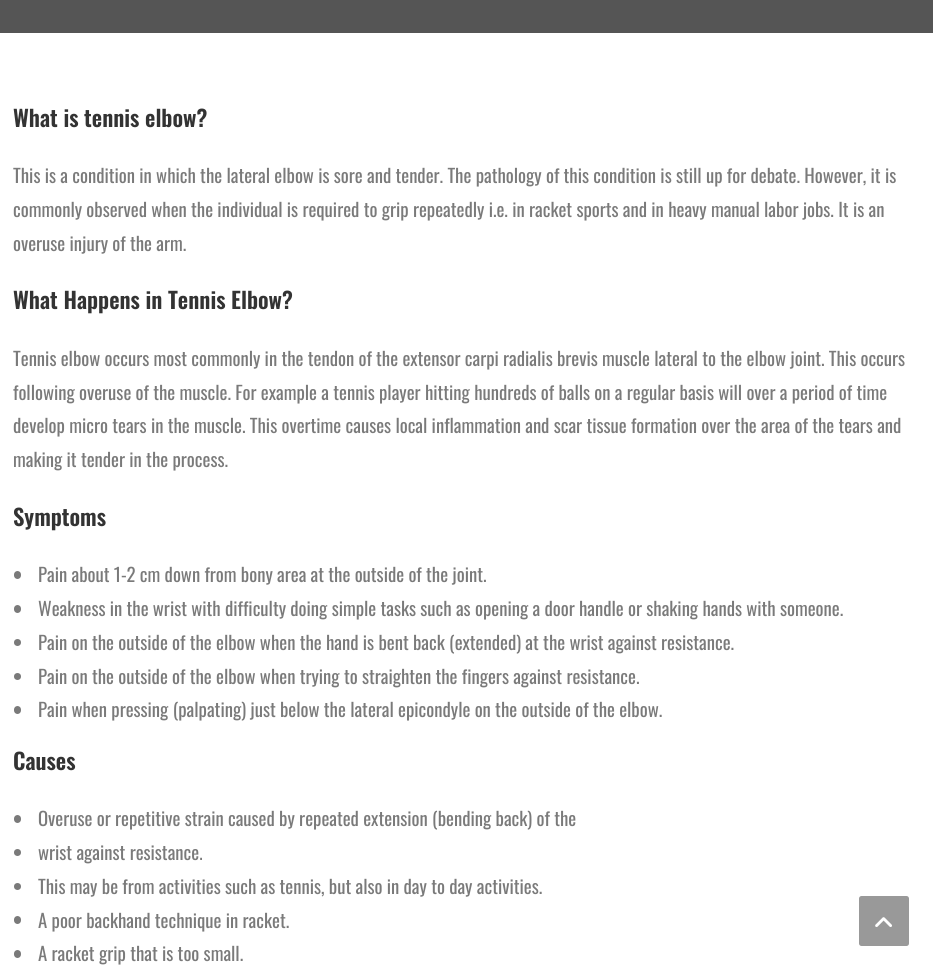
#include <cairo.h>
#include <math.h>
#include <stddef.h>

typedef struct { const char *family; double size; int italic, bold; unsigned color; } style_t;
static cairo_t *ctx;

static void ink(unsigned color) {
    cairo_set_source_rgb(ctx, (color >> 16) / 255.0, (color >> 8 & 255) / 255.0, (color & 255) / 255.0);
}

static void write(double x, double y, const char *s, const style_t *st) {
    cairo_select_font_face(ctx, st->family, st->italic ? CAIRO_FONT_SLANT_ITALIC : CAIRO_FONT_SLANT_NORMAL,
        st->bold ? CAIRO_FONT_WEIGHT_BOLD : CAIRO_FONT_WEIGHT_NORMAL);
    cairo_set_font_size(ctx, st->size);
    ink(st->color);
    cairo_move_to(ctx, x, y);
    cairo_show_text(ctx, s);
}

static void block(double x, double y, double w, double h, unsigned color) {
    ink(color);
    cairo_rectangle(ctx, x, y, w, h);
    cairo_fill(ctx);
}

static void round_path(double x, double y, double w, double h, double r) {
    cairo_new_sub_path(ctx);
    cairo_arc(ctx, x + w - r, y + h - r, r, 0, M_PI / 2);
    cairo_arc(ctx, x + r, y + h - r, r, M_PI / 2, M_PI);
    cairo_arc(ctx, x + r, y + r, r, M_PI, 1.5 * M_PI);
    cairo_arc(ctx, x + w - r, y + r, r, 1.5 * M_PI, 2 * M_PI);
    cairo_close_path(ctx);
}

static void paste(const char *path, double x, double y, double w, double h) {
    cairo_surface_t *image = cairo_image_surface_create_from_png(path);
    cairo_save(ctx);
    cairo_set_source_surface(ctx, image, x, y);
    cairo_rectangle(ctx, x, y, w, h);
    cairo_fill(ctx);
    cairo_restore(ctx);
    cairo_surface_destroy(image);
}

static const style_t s1 = {"Oswald SemiBold", 22.5, 0, 0, 0x333333};
static const style_t s2 = {"Oswald", 18.75, 0, 0, 0x7a7a7a};

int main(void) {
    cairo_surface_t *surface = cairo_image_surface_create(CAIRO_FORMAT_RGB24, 933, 971);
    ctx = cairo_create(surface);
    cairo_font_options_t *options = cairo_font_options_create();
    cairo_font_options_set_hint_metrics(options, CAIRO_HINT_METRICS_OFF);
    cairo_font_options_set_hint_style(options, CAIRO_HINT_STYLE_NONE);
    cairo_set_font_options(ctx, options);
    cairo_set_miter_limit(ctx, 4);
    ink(0xffffff);
    cairo_paint(ctx);
    block(0, 0, 933, 33, 0x555555);
    write(13, 127, "What is tennis elbow?", &s1);
    write(13, 183, "This is a condition in which the lateral elbow is sore and tender. The pathology of this condition is still up for debate. However, it is", &s2);
    write(13, 217, "commonly observed when the individual is required to grip repeatedly i.e. in racket sports and in heavy manual labor jobs. It is an", &s2);
    write(13, 251, "overuse injury of the arm.", &s2);
    write(13, 309, "What Happens in Tennis Elbow?", &s1);
    write(13, 366, "Tennis elbow occurs most commonly in the tendon of the extensor carpi radialis brevis muscle lateral to the elbow joint. This occurs", &s2);
    write(13, 400, "following overuse of the muscle. For example a tennis player hitting hundreds of balls on a regular basis will over a period of time", &s2);
    write(13, 433, "develop micro tears in the muscle. This overtime causes local inflammation and scar tissue formation over the area of the tears and", &s2);
    write(13, 467, "making it tender in the process.", &s2);
    write(13, 526, "Symptoms", &s1);
    ink(0x7a7a7a);
    round_path(14, 571, 7, 8, 3.5);
    cairo_fill(ctx);
    write(38, 582, "Pain about 1-2 cm down from bony area at the outside of the joint.", &s2);
    round_path(14, 605, 7, 8, 3.5);
    cairo_fill(ctx);
    write(38, 616, "Weakness in the wrist with difficulty doing simple tasks such as opening a door handle or shaking hands with someone.", &s2);
    cairo_new_path(ctx);
    cairo_arc(ctx, 17.5, 642.5, 3.5, 0, 2 * M_PI);
    cairo_fill(ctx);
    write(38, 650, "Pain on the outside of the elbow when the hand is bent back (extended) at the wrist against resistance.", &s2);
    cairo_new_path(ctx);
    cairo_arc(ctx, 17.5, 676.5, 3.5, 0, 2 * M_PI);
    cairo_fill(ctx);
    write(38, 684, "Pain on the outside of the elbow when trying to straighten the fingers against resistance.", &s2);
    round_path(14, 706, 7, 8, 3.5);
    cairo_fill(ctx);
    write(38, 717, "Pain when pressing (palpating) just below the lateral epicondyle on the outside of the elbow.", &s2);
    write(13, 770, "Causes", &s1);
    ink(0x7a7a7a);
    round_path(14, 815, 7, 8, 3.5);
    cairo_fill(ctx);
    write(38, 826, "Overuse or repetitive strain caused by repeated extension (bending back) of the", &s2);
    cairo_new_path(ctx);
    cairo_arc(ctx, 17.5, 852.5, 3.5, 0, 2 * M_PI);
    cairo_fill(ctx);
    write(38, 860, "wrist against resistance.", &s2);
    cairo_new_path(ctx);
    cairo_arc(ctx, 17.5, 886.5, 3.5, 0, 2 * M_PI);
    cairo_fill(ctx);
    write(38, 894, "This may be from activities such as tennis, but also in day to day activities.", &s2);
    round_path(14, 916, 7, 8, 3.5);
    cairo_fill(ctx);
    write(38, 928, "A poor backhand technique in racket.", &s2);
    round_path(14, 950, 7, 8, 3.5);
    cairo_fill(ctx);
    write(38, 961, "A racket grip that is too small.", &s2);
    ink(0x999999);
    round_path(859, 896, 50, 50, 2.5);
    cairo_fill(ctx);
    paste("pic1.png", 875, 917, 17, 10);
    cairo_surface_write_to_png(surface, "screenshot.png");
    cairo_font_options_destroy(options);
    cairo_destroy(ctx);
    cairo_surface_destroy(surface);
    return 0;
}
